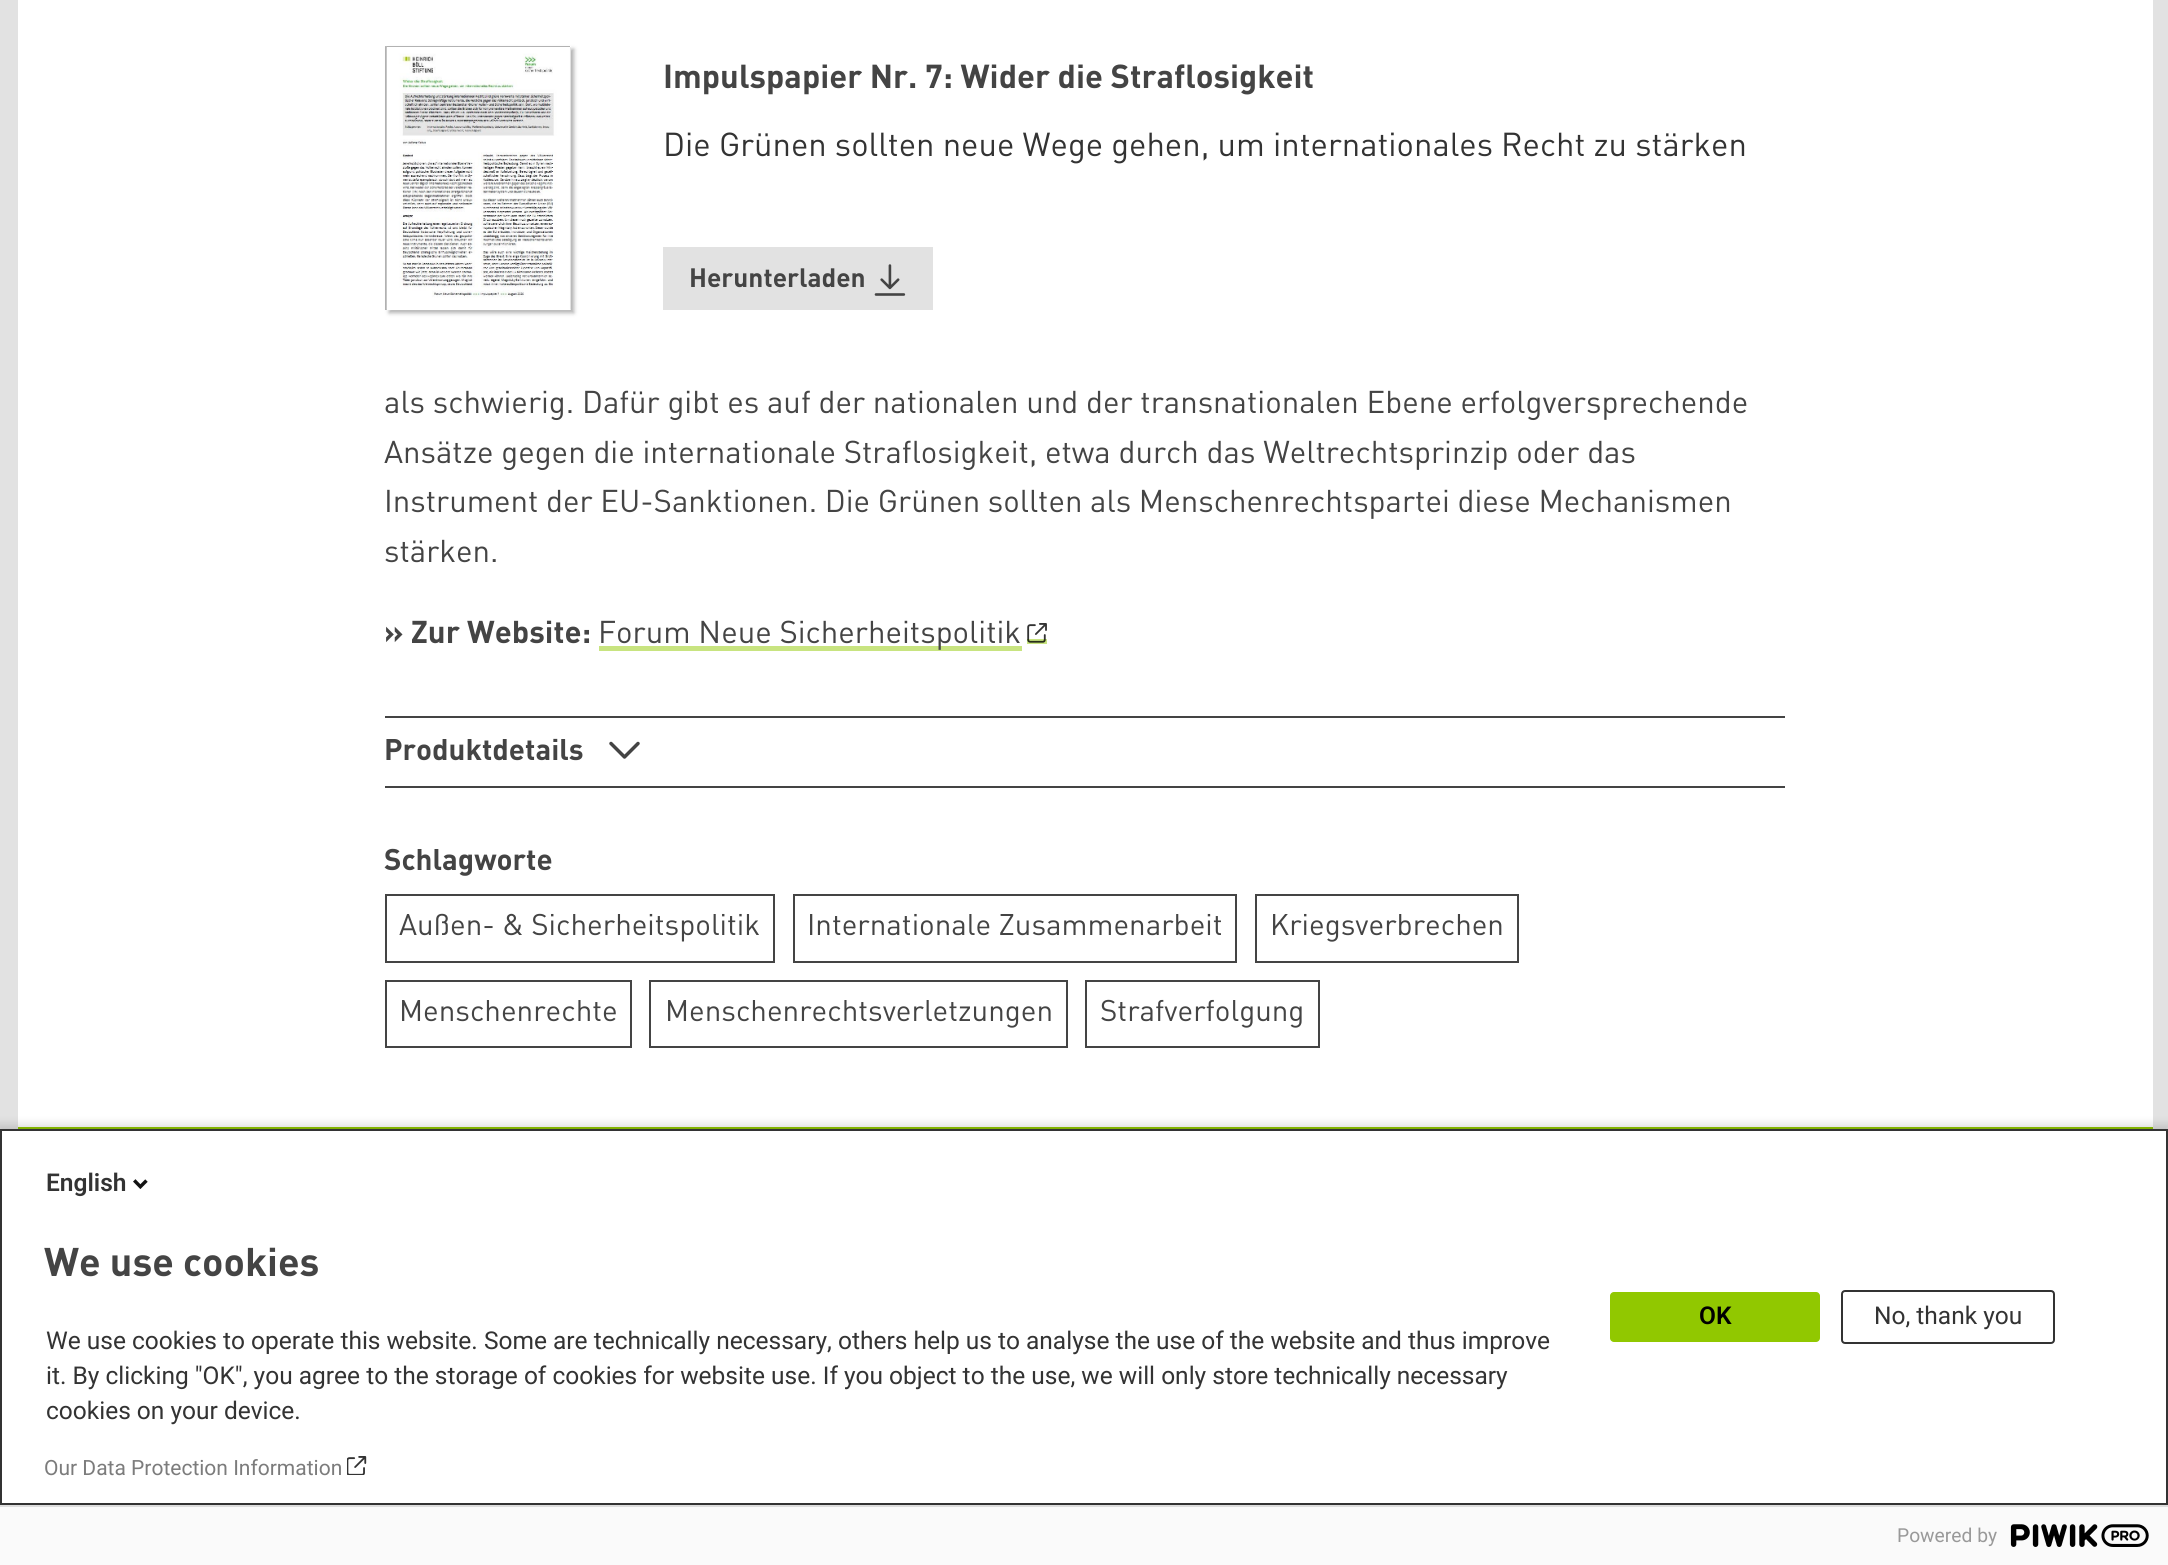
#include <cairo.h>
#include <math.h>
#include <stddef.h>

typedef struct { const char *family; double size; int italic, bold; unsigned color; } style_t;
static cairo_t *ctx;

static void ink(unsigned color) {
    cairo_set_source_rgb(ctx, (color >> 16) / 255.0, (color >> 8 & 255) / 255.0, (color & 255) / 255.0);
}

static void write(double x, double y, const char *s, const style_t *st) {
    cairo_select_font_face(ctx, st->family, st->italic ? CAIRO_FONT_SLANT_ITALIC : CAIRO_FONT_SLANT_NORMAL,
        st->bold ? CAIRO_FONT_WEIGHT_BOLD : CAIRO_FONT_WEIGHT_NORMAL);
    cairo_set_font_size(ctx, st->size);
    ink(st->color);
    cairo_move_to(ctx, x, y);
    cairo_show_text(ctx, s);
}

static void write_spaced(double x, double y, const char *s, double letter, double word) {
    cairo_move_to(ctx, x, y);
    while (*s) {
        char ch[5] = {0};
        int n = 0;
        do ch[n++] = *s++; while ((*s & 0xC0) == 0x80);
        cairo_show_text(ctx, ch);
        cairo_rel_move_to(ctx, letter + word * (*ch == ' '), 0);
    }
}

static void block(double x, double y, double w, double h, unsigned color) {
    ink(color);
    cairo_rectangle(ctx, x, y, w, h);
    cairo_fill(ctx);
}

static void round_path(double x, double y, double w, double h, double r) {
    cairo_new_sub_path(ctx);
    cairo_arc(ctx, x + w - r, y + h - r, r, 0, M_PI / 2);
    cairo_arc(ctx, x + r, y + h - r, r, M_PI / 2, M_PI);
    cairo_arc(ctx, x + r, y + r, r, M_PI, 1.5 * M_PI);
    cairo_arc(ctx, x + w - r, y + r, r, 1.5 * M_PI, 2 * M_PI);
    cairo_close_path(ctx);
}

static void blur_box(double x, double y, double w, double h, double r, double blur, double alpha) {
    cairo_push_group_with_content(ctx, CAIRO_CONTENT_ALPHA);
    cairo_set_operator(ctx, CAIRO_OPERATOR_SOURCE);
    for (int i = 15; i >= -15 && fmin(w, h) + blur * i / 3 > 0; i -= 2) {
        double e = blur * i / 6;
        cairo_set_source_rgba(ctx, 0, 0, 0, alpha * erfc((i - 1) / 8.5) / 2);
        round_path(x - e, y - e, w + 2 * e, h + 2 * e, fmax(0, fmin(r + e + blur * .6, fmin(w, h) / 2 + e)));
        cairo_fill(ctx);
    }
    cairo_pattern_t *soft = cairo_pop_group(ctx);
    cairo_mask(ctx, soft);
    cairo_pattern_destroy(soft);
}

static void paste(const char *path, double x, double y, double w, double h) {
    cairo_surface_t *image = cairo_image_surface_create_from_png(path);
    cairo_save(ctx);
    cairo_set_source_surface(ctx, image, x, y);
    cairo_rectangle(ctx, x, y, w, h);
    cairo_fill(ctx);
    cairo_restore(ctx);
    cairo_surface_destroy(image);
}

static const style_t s1 = {"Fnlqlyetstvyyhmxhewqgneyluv", 32.8, 0, 1, 0x444444};
static const style_t s2 = {"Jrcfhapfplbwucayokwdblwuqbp", 32.8, 0, 0, 0x333333};
static const style_t s3 = {"Fnlqlyetstvyyhmxhewqgneyluv", 26.25, 0, 1, 0x444444};
static const style_t s4 = {"Jrcfhapfplbwucayokwdblwuqbp", 31.15, 0, 0, 0x444444};
static const style_t s5 = {"Fnlqlyetstvyyhmxhewqgneyluv", 31.15, 0, 1, 0x444444};
static const style_t s6 = {"Fnlqlyetstvyyhmxhewqgneyluv", 29.5, 0, 1, 0x444444};
static const style_t s7 = {"Jrcfhapfplbwucayokwdblwuqbp", 29.5, 0, 0, 0x444444};
static const style_t s8 = {"Roboto SemiBold", 24.5, 0, 0, 0x333333};
static const style_t s9 = {"Fnlqlyetstvyyhmxhewqgneyluv", 39.5, 0, 1, 0x444444};
static const style_t s10 = {"Roboto", 24.5, 0, 0, 0x333333};
static const style_t s11 = {"Roboto", 21, 0, 0, 0x7c7c7c};
static const style_t s12 = {"Roboto SemiBold", 24.5, 0, 0, 0x000000};
static const style_t s13 = {"Roboto", 19.25, 0, 0, 0x999999};

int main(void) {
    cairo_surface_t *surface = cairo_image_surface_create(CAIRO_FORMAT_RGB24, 2168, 1565);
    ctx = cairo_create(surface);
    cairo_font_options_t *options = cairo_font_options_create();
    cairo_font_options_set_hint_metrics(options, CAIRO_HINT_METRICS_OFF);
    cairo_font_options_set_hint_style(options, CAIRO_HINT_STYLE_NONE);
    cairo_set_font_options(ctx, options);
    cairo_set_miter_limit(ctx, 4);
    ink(0xe2e2e2);
    cairo_paint(ctx);
    block(18, 0, 2135, 1127, 0xffffff);
    cairo_save(ctx);
    cairo_set_fill_rule(ctx, CAIRO_FILL_RULE_EVEN_ODD);
    cairo_new_path(ctx);
    cairo_move_to(ctx, 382, 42);
    cairo_line_to(ctx, 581, 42);
    cairo_line_to(ctx, 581, 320);
    cairo_line_to(ctx, 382, 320);
    cairo_close_path(ctx);
    cairo_move_to(ctx, 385, 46);
    cairo_line_to(ctx, 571, 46);
    cairo_line_to(ctx, 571, 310);
    cairo_line_to(ctx, 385, 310);
    cairo_close_path(ctx);
    cairo_clip(ctx);
    ink(0x646464);
    blur_box(389, 49, 185, 264, 0, 2, 0.5);
    cairo_restore(ctx);
    ink(0xb2b2b2);
    cairo_new_path(ctx);
    cairo_move_to(ctx, 385, 46);
    cairo_line_to(ctx, 570, 46);
    cairo_line_to(ctx, 570, 47);
    cairo_line_to(ctx, 387, 47);
    cairo_close_path(ctx);
    cairo_fill(ctx);
    cairo_set_source_rgba(ctx, 0.392, 0.392, 0.392, 0.5);
    cairo_new_path(ctx);
    cairo_move_to(ctx, 385, 310);
    cairo_line_to(ctx, 385, 46);
    cairo_line_to(ctx, 387, 47);
    cairo_line_to(ctx, 387, 310);
    cairo_close_path(ctx);
    cairo_fill(ctx);
    paste("pic1.png", 386, 47, 185, 264);
    write(663, 88, "Impulspapier Nr. 7: Wider die Straflosigkeit", &s1);
    write(663, 156, "Die Grünen sollten neue Wege gehen, um internationales Recht zu stärken", &s2);
    block(663, 247, 270, 63, 0xe2e2e2);
    write(689, 287, "Herunterladen", &s3);
    paste("pic2.png", 874, 264, 32, 32);
    write(384, 413, "als schwierig. Dafür gibt es auf der nationalen und der transnationalen Ebene erfolgversprechende", &s4);
    write(384, 463, "Ansätze gegen die internationale Straflosigkeit, etwa durch das Weltrechtsprinzip oder das", &s4);
    write_spaced(384, 512, "Instrument der EU-Sanktionen. Die Grünen sollten als Menschenrechtspartei diese Mechanismen", 0, -0.1);
    write(384, 562, "stärken.", &s4);
    write(384, 643, "» Zur Website:", &s5);
    block(599, 646, 423, 5, 0xc8e480);
    block(1027, 639, 20, 5, 0xc8e480);
    write(598, 643, "Forum Neue Sicherheitspolitik", &s4);
    paste("pic3.png", 1027, 623, 20, 20);
    block(385, 716, 1400, 2, 0x444444);
    block(385, 786, 1400, 2, 0x444444);
    write(384, 760, "Produktdetails", &s6);
    cairo_new_path(ctx);
    cairo_move_to(ctx, 611, 743.5);
    cairo_line_to(ctx, 624.5, 757);
    cairo_move_to(ctx, 638, 743.5);
    cairo_line_to(ctx, 624.5, 757);
    cairo_set_line_width(ctx, 3.5);
    cairo_set_line_cap(ctx, CAIRO_LINE_CAP_ROUND);
    cairo_set_line_join(ctx, CAIRO_LINE_JOIN_ROUND);
    cairo_stroke(ctx);
    write(384, 870, "Schlagworte", &s6);
    cairo_rectangle(ctx, 386, 895, 388, 67);
    cairo_set_line_width(ctx, 2);
    cairo_set_line_cap(ctx, CAIRO_LINE_CAP_BUTT);
    cairo_set_line_join(ctx, CAIRO_LINE_JOIN_MITER);
    cairo_stroke(ctx);
    write(399, 935, "Außen- & Sicherheitspolitik", &s7);
    cairo_rectangle(ctx, 794, 895, 442, 67);
    cairo_stroke(ctx);
    write(807, 935, "Internationale Zusammenarbeit", &s7);
    cairo_rectangle(ctx, 1256, 895, 262, 67);
    cairo_stroke(ctx);
    write(1270, 935, "Kriegsverbrechen", &s7);
    cairo_rectangle(ctx, 386, 981, 245, 66);
    cairo_stroke(ctx);
    write(399, 1021, "Menschenrechte", &s7);
    cairo_rectangle(ctx, 650, 981, 417, 66);
    cairo_stroke(ctx);
    write(665, 1021, "Menschenrechtsverletzungen", &s7);
    cairo_rectangle(ctx, 1086, 981, 233, 66);
    cairo_stroke(ctx);
    write(1100, 1021, "Strafverfolgung", &s7);
    block(18, 1127, 2135, 2, 0x91c800);
    ink(0x000000);
    blur_box(-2, 1124, 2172, 441, 0, 4.5, 0.14);
    ink(0xffffff);
    cairo_rectangle(ctx, 1, 1130, 2166, 374);
    cairo_fill_preserve(ctx);
    ink(0x333333);
    cairo_stroke(ctx);
    write(46, 1191, "English", &s8);
    paste("pic4.png", 133, 1179, 15, 10);
    write(44, 1276, "We use cookies", &s9);
    write(46, 1349, "We use cookies to operate this website. Some are technically necessary, others help us to analyse the use of the website and thus improve", &s10);
    write(46, 1384, "it. By clicking \"OK\", you agree to the storage of cookies for website use. If you object to the use, we will only store technically necessary", &s10);
    write(46, 1419, "cookies on your device.", &s10);
    write(44, 1475, "Our Data Protection Information", &s11);
    paste("pic5.png", 347, 1456, 20, 19);
    ink(0x91c800);
    round_path(1610, 1292, 210, 50, 4);
    cairo_fill(ctx);
    write(1699, 1324, "OK", &s12);
    round_path(1842, 1291, 212, 52, 3);
    ink(0x333333);
    cairo_stroke(ctx);
    write(1874, 1324, "No, thank you", &s10);
    block(0, 1507, 2168, 58, 0xfafafa);
    block(0, 1505, 2168, 2, 0xdddddd);
    write(1897, 1542, "Powered by", &s13);
    paste("pic6.png", 2010, 1524, 139, 23);
    cairo_surface_write_to_png(surface, "screenshot.png");
    cairo_font_options_destroy(options);
    cairo_destroy(ctx);
    cairo_surface_destroy(surface);
    return 0;
}
